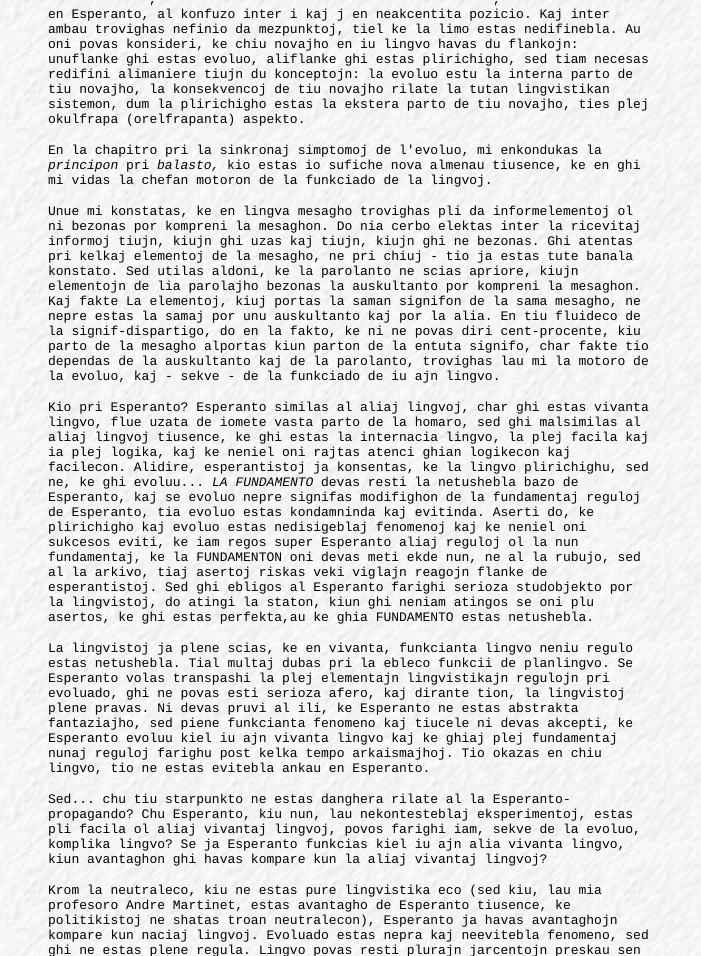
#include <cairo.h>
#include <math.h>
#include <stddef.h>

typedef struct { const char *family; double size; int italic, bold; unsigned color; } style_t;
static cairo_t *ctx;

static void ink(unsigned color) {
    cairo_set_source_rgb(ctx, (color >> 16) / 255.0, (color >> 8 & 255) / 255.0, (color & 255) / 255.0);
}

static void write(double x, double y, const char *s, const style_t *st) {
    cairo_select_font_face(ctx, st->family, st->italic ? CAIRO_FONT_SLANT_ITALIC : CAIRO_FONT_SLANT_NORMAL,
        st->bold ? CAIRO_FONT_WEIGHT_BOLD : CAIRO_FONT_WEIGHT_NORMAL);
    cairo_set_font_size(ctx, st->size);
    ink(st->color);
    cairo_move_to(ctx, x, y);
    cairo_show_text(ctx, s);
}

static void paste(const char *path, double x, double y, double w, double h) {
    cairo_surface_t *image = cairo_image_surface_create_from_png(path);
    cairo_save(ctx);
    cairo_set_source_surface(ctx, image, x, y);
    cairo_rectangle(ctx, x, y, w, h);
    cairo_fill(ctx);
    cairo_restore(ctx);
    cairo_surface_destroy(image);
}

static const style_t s1 = {"Liberation Mono", 13, 0, 0, 0x000000};
static const style_t s2 = {"Liberation Mono", 13, 1, 0, 0x000000};

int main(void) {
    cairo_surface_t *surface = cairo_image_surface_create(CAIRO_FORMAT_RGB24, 701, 956);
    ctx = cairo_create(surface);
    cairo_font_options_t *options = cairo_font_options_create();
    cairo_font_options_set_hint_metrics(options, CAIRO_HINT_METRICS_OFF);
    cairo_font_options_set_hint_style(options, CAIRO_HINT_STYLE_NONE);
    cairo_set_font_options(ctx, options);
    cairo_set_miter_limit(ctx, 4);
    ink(0xffffff);
    cairo_paint(ctx);
    paste("pic1.png", 0, 0, 701, 956);
    write(149, 3, ",", &s1);
    write(493, 3, ",", &s1);
    write(48, 18, "en Esperanto, al konfuzo inter i kaj j en neakcentita pozicio. Kaj inter", &s1);
    write(48, 33, "ambau trovighas nefinio da mezpunktoj, tiel ke la limo estas nedifinebla. Au", &s1);
    write(48, 48, "oni povas konsideri, ke chiu novajho en iu lingvo havas du flankojn:", &s1);
    write(48, 63, "unuflanke ghi estas evoluo, aliflanke ghi estas plirichigho, sed tiam necesas", &s1);
    write(48, 78, "redifini alimaniere tiujn du konceptojn: la evoluo estu la interna parto de", &s1);
    write(48, 93, "tiu novajho, la konsekvencoj de tiu novajho rilate la tutan lingvistikan", &s1);
    write(48, 108, "sistemon, dum la plirichigho estas la ekstera parto de tiu novajho, ties plej", &s1);
    write(48, 123, "okulfrapa (orelfrapanta) aspekto.", &s1);
    write(48, 154, "En la chapitro pri la sinkronaj simptomoj de l'evoluo, mi enkondukas la", &s1);
    write(48, 169, "principon", &s2);
    write(126, 169, "pri", &s1);
    write(157, 169, "balasto,", &s2);
    write(227, 169, "kio estas io sufiche nova almenau tiusence, ke en ghi", &s1);
    write(48, 184, "mi vidas la chefan motoron de la funkciado de la lingvoj.", &s1);
    write(48, 215, "Unue mi konstatas, ke en lingva mesagho trovighas pli da informelementoj ol", &s1);
    write(48, 230, "ni bezonas por kompreni la mesaghon. Do nia cerbo elektas inter la ricevitaj", &s1);
    write(48, 245, "informoj tiujn, kiujn ghi uzas kaj tiujn, kiujn ghi ne bezonas. Ghi atentas", &s1);
    write(48, 260, "pri kelkaj elementoj de la mesagho, ne pri chiuj - tio ja estas tute banala", &s1);
    write(48, 275, "konstato. Sed utilas aldoni, ke la parolanto ne scias apriore, kiujn", &s1);
    write(48, 290, "elementojn de lia parolajho bezonas la auskultanto por kompreni la mesaghon.", &s1);
    write(48, 305, "Kaj fakte La elementoj, kiuj portas la saman signifon de la sama mesagho, ne", &s1);
    write(48, 320, "nepre estas la samaj por unu auskultanto kaj por la alia. En tiu fluideco de", &s1);
    write(48, 335, "la signif-dispartigo, do en la fakto, ke ni ne povas diri cent-procente, kiu", &s1);
    write(48, 350, "parto de la mesagho alportas kiun parton de la entuta signifo, char fakte tio", &s1);
    write(48, 365, "dependas de la auskultanto kaj de la parolanto, trovighas lau mi la motoro de", &s1);
    write(48, 380, "la evoluo, kaj - sekve - de la funkciado de iu ajn lingvo.", &s1);
    write(48, 411, "Kio pri Esperanto? Esperanto similas al aliaj lingvoj, char ghi estas vivanta", &s1);
    write(48, 426, "lingvo, flue uzata de iomete vasta parto de la homaro, sed ghi malsimilas al", &s1);
    write(48, 441, "aliaj lingvoj tiusence, ke ghi estas la internacia lingvo, la plej facila kaj", &s1);
    write(48, 456, "ia plej logika, kaj ke neniel oni rajtas atenci ghian logikecon kaj", &s1);
    write(48, 471, "facilecon. Alidire, esperantistoj ja konsentas, ke la lingvo plirichighu, sed", &s1);
    write(48, 486, "ne, ke ghi evoluu...", &s1);
    write(212, 486, "LA FUNDAMENTO", &s2);
    write(321, 486, "devas resti la netushebla bazo de", &s1);
    write(48, 501, "Esperanto, kaj se evoluo nepre signifas modifighon de la fundamentaj reguloj", &s1);
    write(48, 516, "de Esperanto, tia evoluo estas kondamninda kaj evitinda. Aserti do, ke", &s1);
    write(48, 531, "plirichigho kaj evoluo estas nedisigeblaj fenomenoj kaj ke neniel oni", &s1);
    write(48, 546, "sukcesos eviti, ke iam regos super Esperanto aliaj reguloj ol la nun", &s1);
    write(48, 561, "fundamentaj, ke la FUNDAMENTON oni devas meti ekde nun, ne al la rubujo, sed", &s1);
    write(48, 576, "al la arkivo, tiaj asertoj riskas veki viglajn reagojn flanke de", &s1);
    write(48, 591, "esperantistoj. Sed ghi ebligos al Esperanto farighi serioza studobjekto por", &s1);
    write(48, 606, "la lingvistoj, do atingi la staton, kiun ghi neniam atingos se oni plu", &s1);
    write(48, 621, "asertos, ke ghi estas perfekta,au ke ghia FUNDAMENTO estas netushebla.", &s1);
    write(48, 652, "La lingvistoj ja plene scias, ke en vivanta, funkcianta lingvo neniu regulo", &s1);
    write(48, 667, "estas netushebla. Tial multaj dubas pri la ebleco funkcii de planlingvo. Se", &s1);
    write(48, 682, "Esperanto volas transpashi la plej elementajn lingvistikajn regulojn pri", &s1);
    write(48, 697, "evoluado, ghi ne povas esti serioza afero, kaj dirante tion, la lingvistoj", &s1);
    write(48, 712, "plene pravas. Ni devas pruvi al ili, ke Esperanto ne estas abstrakta", &s1);
    write(48, 727, "fantaziajho, sed piene funkcianta fenomeno kaj tiucele ni devas akcepti, ke", &s1);
    write(48, 742, "Esperanto evoluu kiel iu ajn vivanta lingvo kaj ke ghiaj plej fundamentaj", &s1);
    write(48, 757, "nunaj reguloj farighu post kelka tempo arkaismajhoj. Tio okazas en chiu", &s1);
    write(48, 772, "lingvo, tio ne estas evitebla ankau en Esperanto.", &s1);
    write(48, 803, "Sed... chu tiu starpunkto ne estas danghera rilate al la Esperanto-", &s1);
    write(48, 818, "propagando? Chu Esperanto, kiu nun, lau nekontesteblaj eksperimentoj, estas", &s1);
    write(48, 833, "pli facila ol aliaj vivantaj lingvoj, povos farighi iam, sekve de la evoluo,", &s1);
    write(48, 848, "komplika lingvo? Se ja Esperanto funkcias kiel iu ajn alia vivanta lingvo,", &s1);
    write(48, 863, "kiun avantaghon ghi havas kompare kun la aliaj vivantaj lingvoj?", &s1);
    write(48, 894, "Krom la neutraleco, kiu ne estas pure lingvistika eco (sed kiu, lau mia", &s1);
    write(48, 909, "profesoro Andre Martinet, estas avantagho de Esperanto tiusence, ke", &s1);
    write(48, 924, "politikistoj ne shatas troan neutralecon), Esperanto ja havas avantaghojn", &s1);
    write(48, 939, "kompare kun naciaj lingvoj. Evoluado estas nepra kaj neevitebla fenomeno, sed", &s1);
    write(48, 954, "ghi ne estas plene regula. Lingvo povas resti plurajn jarcentojn preskau sen", &s1);
    cairo_surface_write_to_png(surface, "screenshot.png");
    cairo_font_options_destroy(options);
    cairo_destroy(ctx);
    cairo_surface_destroy(surface);
    return 0;
}
